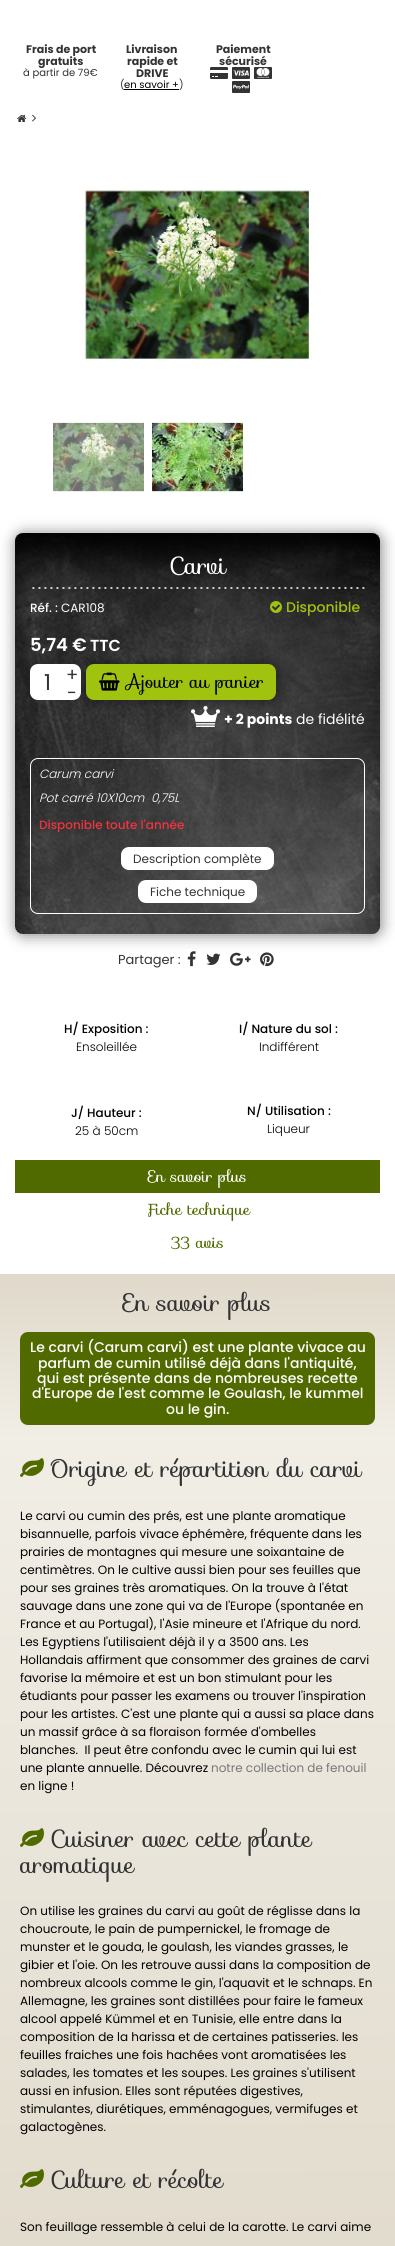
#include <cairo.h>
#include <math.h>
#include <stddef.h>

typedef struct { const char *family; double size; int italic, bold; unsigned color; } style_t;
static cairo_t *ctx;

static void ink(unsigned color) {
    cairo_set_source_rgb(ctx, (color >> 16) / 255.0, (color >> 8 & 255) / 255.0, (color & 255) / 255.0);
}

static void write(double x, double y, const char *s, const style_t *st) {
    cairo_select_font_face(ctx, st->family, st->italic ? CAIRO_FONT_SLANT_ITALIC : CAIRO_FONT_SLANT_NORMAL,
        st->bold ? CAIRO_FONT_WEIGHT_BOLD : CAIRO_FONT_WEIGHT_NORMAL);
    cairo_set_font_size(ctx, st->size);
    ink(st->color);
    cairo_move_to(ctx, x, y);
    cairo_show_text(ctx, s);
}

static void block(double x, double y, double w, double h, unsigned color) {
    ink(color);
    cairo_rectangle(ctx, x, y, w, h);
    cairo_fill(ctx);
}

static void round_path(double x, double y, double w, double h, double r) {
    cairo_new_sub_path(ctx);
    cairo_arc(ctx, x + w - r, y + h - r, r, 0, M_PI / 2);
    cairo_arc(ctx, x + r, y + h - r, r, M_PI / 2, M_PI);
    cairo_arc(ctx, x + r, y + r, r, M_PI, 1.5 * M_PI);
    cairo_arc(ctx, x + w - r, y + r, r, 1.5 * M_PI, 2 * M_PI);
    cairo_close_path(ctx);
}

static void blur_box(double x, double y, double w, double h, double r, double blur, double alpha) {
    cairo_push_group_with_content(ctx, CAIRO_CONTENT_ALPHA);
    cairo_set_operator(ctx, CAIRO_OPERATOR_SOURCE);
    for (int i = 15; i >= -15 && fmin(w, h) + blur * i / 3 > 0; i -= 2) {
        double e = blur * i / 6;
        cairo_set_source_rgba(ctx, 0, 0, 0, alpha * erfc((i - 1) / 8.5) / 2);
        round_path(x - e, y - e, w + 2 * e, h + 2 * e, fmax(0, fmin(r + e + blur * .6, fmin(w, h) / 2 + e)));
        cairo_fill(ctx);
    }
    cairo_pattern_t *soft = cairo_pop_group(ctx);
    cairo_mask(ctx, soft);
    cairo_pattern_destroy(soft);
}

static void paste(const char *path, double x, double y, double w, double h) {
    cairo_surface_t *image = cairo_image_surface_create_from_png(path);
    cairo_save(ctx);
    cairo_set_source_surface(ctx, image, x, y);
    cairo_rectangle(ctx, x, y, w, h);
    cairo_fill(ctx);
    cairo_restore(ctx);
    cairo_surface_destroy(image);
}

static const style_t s1 = {"Poppins", 11, 0, 1, 0x333333};
static const style_t s2 = {"Poppins", 10, 0, 0, 0x333333};
static const style_t s3 = {"Poppins", 10, 0, 0, 0x000000};
static const style_t s4 = {"Sofia", 24, 0, 0, 0xffffff};
static const style_t s5 = {"Poppins Medium", 12, 0, 0, 0xffffff};
static const style_t s6 = {"Poppins", 12, 0, 0, 0xffffff};
static const style_t s7 = {"Poppins Medium", 14, 0, 0, 0x9fc30f};
static const style_t s8 = {"Poppins SemiBold", 18, 0, 0, 0xffffff};
static const style_t s9 = {"Poppins SemiBold", 16, 0, 0, 0xffffff};
static const style_t s10 = {"Poppins", 22, 0, 0, 0x333333};
static const style_t s11 = {"Poppins", 18, 0, 0, 0x333333};
static const style_t s12 = {"Sofia", 18, 0, 0, 0x000000};
static const style_t s13 = {"Poppins", 14, 0, 1, 0xffffff};
static const style_t s14 = {"Poppins", 14, 0, 0, 0xffffff};
static const style_t s15 = {"Poppins Light", 12, 1, 0, 0xffffff};
static const style_t s16 = {"Poppins Medium", 12, 0, 0, 0xf13340};
static const style_t s17 = {"Poppins", 12, 0, 0, 0x333333};
static const style_t s18 = {"Poppins", 13, 0, 0, 0x333333};
static const style_t s19 = {"Poppins Medium", 12, 0, 0, 0x000000};
static const style_t s20 = {"Poppins Light", 12, 0, 0, 0x000000};
static const style_t s21 = {"Sofia", 16, 0, 0, 0xffffff};
static const style_t s22 = {"Sofia", 16, 0, 0, 0x506a00};
static const style_t s23 = {"Sofia", 24, 0, 0, 0x333333};
static const style_t s24 = {"Poppins Medium", 14, 0, 0, 0xffffff};
static const style_t s25 = {"Poppins", 12, 0, 0, 0x000000};
static const style_t s26 = {"Poppins", 12, 0, 0, 0x777777};

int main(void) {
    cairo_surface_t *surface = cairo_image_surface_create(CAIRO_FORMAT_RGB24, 395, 2246);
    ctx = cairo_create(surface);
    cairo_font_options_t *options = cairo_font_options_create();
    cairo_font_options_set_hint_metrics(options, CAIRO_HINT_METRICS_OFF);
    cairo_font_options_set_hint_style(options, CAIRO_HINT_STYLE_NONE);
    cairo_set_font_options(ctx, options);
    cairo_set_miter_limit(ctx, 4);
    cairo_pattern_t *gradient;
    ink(0xffffff);
    cairo_paint(ctx);
    write(26, 53, "Frais de port", &s1);
    write(38, 65, "gratuits", &s1);
    write(23, 76, "à partir de 79€", &s2);
    write(126, 53, "Livraison", &s1);
    write(127, 65, "rapide et", &s1);
    write(136, 77, "DRIVE", &s1);
    write(120, 88, "(", &s2);
    write(124, 88, "en savoir +", &s3);
    block(124, 89, 55, 1, 0x000000);
    write(179, 88, ")", &s2);
    write(216, 53, "Paiement", &s1);
    write(219, 65, "sécurisé", &s1);
    paste("pic1.png", 210, 67, 18, 12);
    paste("pic2.png", 232, 67, 18, 12);
    paste("pic3.png", 254, 67, 18, 12);
    paste("pic4.png", 232, 81, 18, 12);
    paste("pic5.png", 17, 114, 10, 8);
    paste("pic6.png", 32, 114, 4, 8);
    paste("pic7.png", 82, 189, 234, 172);
    paste("pic8.png", 53, 422, 91, 70);
    paste("pic9.png", 152, 422, 91, 70);
    ink(0x000000);
    blur_box(16, 534, 365, 401, 8, 7.5, 0.5);
    paste("pic10.png", 15, 533, 365, 401);
    paste("pic11.png", 32, 587, 333, 2);
    write(169, 574, "Carvi", &s4);
    write(30, 612, "Réf. :", &s5);
    write(61, 612, "CAR108", &s6);
    paste("pic12.png", 270, 601, 12, 12);
    write(286, 612, "Disponible", &s7);
    ink(0x000000);
    blur_box(87, 665, 190, 36, 8, 7.5, 0.5);
    write(30, 651, "5,74 €", &s8);
    write(90, 651, "TTC", &s9);
    cairo_new_path(ctx);
    cairo_move_to(ctx, 38, 664);
    cairo_line_to(ctx, 66, 664);
    cairo_line_to(ctx, 66, 700);
    cairo_line_to(ctx, 38, 700);
    cairo_curve_to(ctx, 33.5, 700, 30, 696.5, 30, 692);
    cairo_line_to(ctx, 30, 672);
    cairo_curve_to(ctx, 30, 667.5, 33.5, 664, 38, 664);
    cairo_close_path(ctx);
    cairo_fill(ctx);
    write(44, 690, "1", &s10);
    ink(0xffffff);
    cairo_new_path(ctx);
    cairo_move_to(ctx, 66, 664);
    cairo_line_to(ctx, 73, 664);
    cairo_curve_to(ctx, 77.5, 664, 81, 667.5, 81, 672);
    cairo_line_to(ctx, 81, 682);
    cairo_line_to(ctx, 66, 682);
    cairo_close_path(ctx);
    cairo_fill(ctx);
    write(66, 681, "+", &s11);
    ink(0xffffff);
    cairo_new_path(ctx);
    cairo_move_to(ctx, 66, 682);
    cairo_line_to(ctx, 81, 682);
    cairo_line_to(ctx, 81, 692);
    cairo_curve_to(ctx, 81, 696.5, 77.5, 700, 73, 700);
    cairo_line_to(ctx, 66, 700);
    cairo_close_path(ctx);
    cairo_fill(ctx);
    write(67, 699, "-", &s11);
    ink(0x9fc30f);
    round_path(86, 664, 190, 36, 8);
    cairo_fill(ctx);
    paste("pic13.png", 99, 672, 21, 19);
    write(126, 688, "Ajouter au panier", &s12);
    paste("pic14.png", 191, 706, 29, 21);
    write(224, 724, "+ 2 points", &s13);
    write(296, 724, "de fidélité", &s14);
    round_path(30.5, 758.5, 334, 155, 7.5);
    cairo_set_line_width(ctx, 1);
    cairo_stroke(ctx);
    write(39, 778, "Carum carvi", &s15);
    write(39, 802, "Pot carré 10X10cm  0,75L", &s15);
    write(39, 829, "Disponible toute l'année", &s16);
    ink(0xffffff);
    round_path(121, 847, 153, 23, 8);
    cairo_fill(ctx);
    write(133, 863, "Description complète", &s17);
    ink(0xffffff);
    round_path(138, 880, 119, 23, 8);
    cairo_fill(ctx);
    write(150, 896, "Fiche technique", &s17);
    write(118, 964, "Partager :", &s18);
    paste("pic15.png", 187, 951, 9, 16);
    paste("pic16.png", 206, 953, 15, 12);
    paste("pic17.png", 230, 952, 21, 14);
    paste("pic18.png", 260, 952, 14, 15);
    write(64, 1033, "H/ Exposition :", &s19);
    write(76, 1051, "Ensoleillée", &s20);
    write(239, 1033, "I/ Nature du sol :", &s19);
    write(259, 1051, "Indifférent", &s20);
    write(71, 1117, "J/ Hauteur :", &s19);
    write(75, 1135, "25 à 50cm", &s20);
    write(247, 1115, "N/ Utilisation :", &s19);
    write(267, 1133, "Liqueur", &s20);
    block(15, 1160, 365, 33, 0x506a00);
    write(148, 1182, "En savoir plus", &s21);
    write(146, 1215, "Fiche technique", &s22);
    write(171, 1248, "33 avis", &s22);
    gradient = cairo_pattern_create_linear(197, 1274, 198, 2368);
    cairo_pattern_add_color_stop_rgba(gradient, 0, 0.878, 0.851, 0.792, 1);
    cairo_pattern_add_color_stop_rgba(gradient, 0.15, 0.945, 0.933, 0.902, 1);
    cairo_pattern_add_color_stop_rgba(gradient, 1, 0.878, 0.851, 0.792, 1);
    cairo_set_source(ctx, gradient);
    cairo_pattern_destroy(gradient);
    cairo_rectangle(ctx, 0, 1274, 395, 972);
    cairo_fill(ctx);
    write(123, 1311, "En savoir plus", &s23);
    ink(0x506a00);
    round_path(20, 1332, 355, 93, 8);
    cairo_fill(ctx);
    write(30, 1352, "Le carvi (Carum carvi) est une plante vivace au", &s24);
    write(38, 1368, "parfum de cumin utilisé déjà dans l'antiquité,", &s24);
    write(37, 1383, "qui est présente dans de nombreuses recette", &s24);
    write(32, 1398, "d'Europe de l'est comme le Goulash, le kummel", &s24);
    write(166, 1414, "ou le gin.", &s24);
    paste("pic19.png", 20, 1458, 24, 19);
    write(50, 1477, "Origine et répartition du carvi", &s23);
    write(20, 1520, "Le carvi ou cumin des prés, est une plante aromatique", &s25);
    write(20, 1538, "bisannuelle, parfois vivace éphémère, fréquente dans les", &s25);
    write(20, 1556, "prairies de montagnes qui mesure une soixantaine de", &s25);
    write(20, 1574, "centimètres. On le cultive aussi bien pour ses feuilles que", &s25);
    write(20, 1592, "pour ses graines très aromatiques. On la trouve à l'état", &s25);
    write(20, 1610, "sauvage dans une zone qui va de l'Europe (spontanée en", &s25);
    write(20, 1628, "France et au Portugal), l'Asie mineure et l'Afrique du nord.", &s25);
    write(20, 1646, "Les Egyptiens l'utilisaient déjà il y a 3500 ans. Les", &s25);
    write(20, 1664, "Hollandais affirment que consommer des graines de carvi", &s25);
    write(20, 1682, "favorise la mémoire et est un bon stimulant pour les", &s25);
    write(20, 1700, "étudiants pour passer les examens ou trouver l'inspiration", &s25);
    write(20, 1718, "pour les artistes. C'est une plante qui a aussi sa place dans", &s25);
    write(20, 1736, "un massif grâce à sa floraison formée d'ombelles", &s25);
    write(20, 1754, "blanches.  Il peut être confondu avec le cumin qui lui est", &s25);
    write(20, 1772, "une plante annuelle. Découvrez", &s25);
    write(211, 1772, "notre collection de fenouil", &s26);
    write(20, 1790, "en ligne !", &s25);
    paste("pic20.png", 20, 1828, 24, 19);
    write(50, 1847, "Cuisiner avec cette plante", &s23);
    write(20, 1873, "aromatique", &s23);
    write(20, 1915, "On utilise les graines du carvi au goût de réglisse dans la", &s25);
    write(20, 1933, "choucroute, le pain de pumpernickel, le fromage de", &s25);
    write(20, 1951, "munster et le gouda, le goulash, les viandes grasses, le", &s25);
    write(20, 1969, "gibier et l'oie. On les retrouve aussi dans la composition de", &s25);
    write(20, 1987, "nombreux alcools comme le gin, l'aquavit et le schnaps. En", &s25);
    write(20, 2005, "Allemagne, les graines sont distillées pour faire le fameux", &s25);
    write(20, 2023, "alcool appelé Kümmel et en Tunisie, elle entre dans la", &s25);
    write(20, 2041, "composition de la harissa et de certaines patisseries. les", &s25);
    write(20, 2059, "feuilles fraiches une fois hachées vont aromatisées les", &s25);
    write(20, 2077, "salades, les tomates et les soupes. Les graines s'utilisent", &s25);
    write(20, 2095, "aussi en infusion. Elles sont réputées digestives,", &s25);
    write(20, 2113, "stimulantes, diurétiques, emménagogues, vermifuges et", &s25);
    write(20, 2131, "galactogènes.", &s25);
    paste("pic21.png", 20, 2169, 24, 19);
    write(50, 2188, "Culture et récolte", &s23);
    write(20, 2231, "Son feuillage ressemble à celui de la carotte. Le carvi aime", &s25);
    cairo_surface_write_to_png(surface, "screenshot.png");
    cairo_font_options_destroy(options);
    cairo_destroy(ctx);
    cairo_surface_destroy(surface);
    return 0;
}
